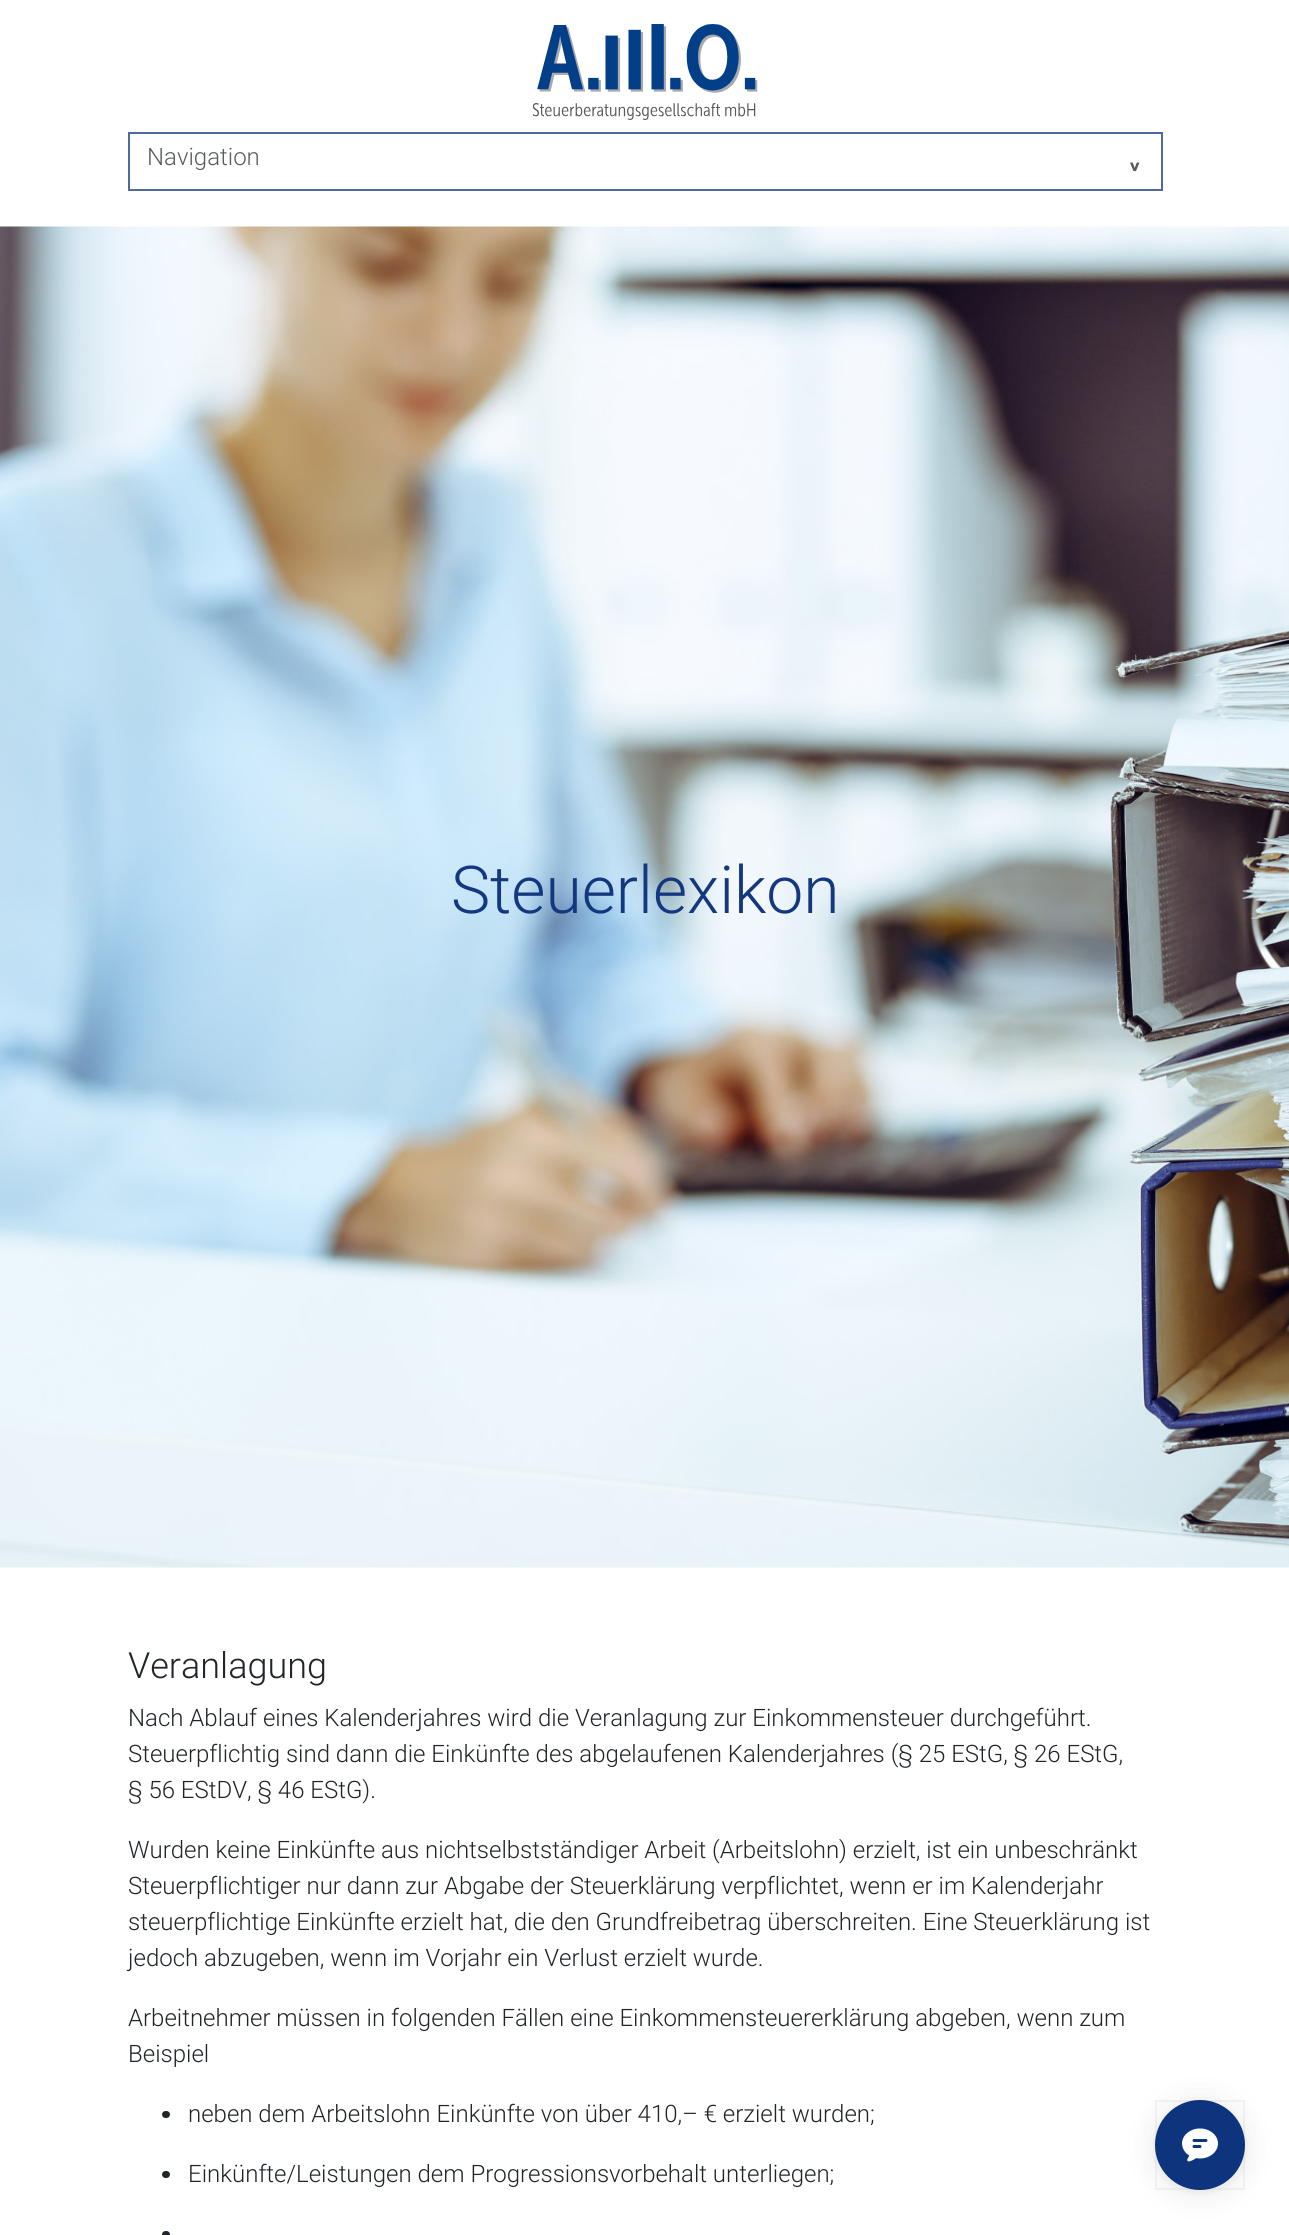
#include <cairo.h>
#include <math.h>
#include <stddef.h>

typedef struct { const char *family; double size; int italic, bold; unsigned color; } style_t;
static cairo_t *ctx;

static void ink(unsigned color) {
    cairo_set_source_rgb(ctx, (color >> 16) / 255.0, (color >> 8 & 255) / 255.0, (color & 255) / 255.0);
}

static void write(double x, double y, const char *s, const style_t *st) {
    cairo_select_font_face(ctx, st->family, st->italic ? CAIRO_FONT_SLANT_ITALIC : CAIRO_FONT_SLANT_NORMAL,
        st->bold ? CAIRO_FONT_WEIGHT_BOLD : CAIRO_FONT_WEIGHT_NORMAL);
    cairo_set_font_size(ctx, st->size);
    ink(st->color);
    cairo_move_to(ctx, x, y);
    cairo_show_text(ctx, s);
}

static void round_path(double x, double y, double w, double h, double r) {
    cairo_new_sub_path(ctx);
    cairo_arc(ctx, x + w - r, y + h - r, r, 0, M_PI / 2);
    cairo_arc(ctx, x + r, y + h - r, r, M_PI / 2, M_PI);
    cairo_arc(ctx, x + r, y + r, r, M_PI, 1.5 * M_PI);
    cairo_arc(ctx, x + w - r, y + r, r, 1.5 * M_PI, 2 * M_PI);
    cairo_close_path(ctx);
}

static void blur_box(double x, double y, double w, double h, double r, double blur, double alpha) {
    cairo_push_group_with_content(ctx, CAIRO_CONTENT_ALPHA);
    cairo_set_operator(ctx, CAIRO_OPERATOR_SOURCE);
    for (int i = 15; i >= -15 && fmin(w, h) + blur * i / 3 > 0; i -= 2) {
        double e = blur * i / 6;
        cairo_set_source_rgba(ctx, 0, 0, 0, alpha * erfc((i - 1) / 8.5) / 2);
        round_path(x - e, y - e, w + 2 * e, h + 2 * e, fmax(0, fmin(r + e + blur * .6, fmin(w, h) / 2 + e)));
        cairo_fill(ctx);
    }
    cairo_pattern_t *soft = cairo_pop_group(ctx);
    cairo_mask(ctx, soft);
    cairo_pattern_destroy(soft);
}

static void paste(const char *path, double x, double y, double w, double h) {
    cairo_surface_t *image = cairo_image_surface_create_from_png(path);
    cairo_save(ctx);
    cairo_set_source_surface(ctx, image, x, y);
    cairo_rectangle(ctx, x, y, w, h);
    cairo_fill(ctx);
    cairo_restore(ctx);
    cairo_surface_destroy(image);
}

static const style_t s1 = {"Roboto Light", 24, 0, 0, 0x595c5f};
static const style_t s2 = {"Roboto", 24, 0, 1, 0x595c5f};
static const style_t s3 = {"Roboto Light", 66, 0, 0, 0x14387f};
static const style_t s4 = {"Roboto Light", 36, 0, 0, 0x212529};
static const style_t s5 = {"Roboto Light", 24, 0, 0, 0x212529};

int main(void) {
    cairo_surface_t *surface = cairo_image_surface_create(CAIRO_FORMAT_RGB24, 1289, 2235);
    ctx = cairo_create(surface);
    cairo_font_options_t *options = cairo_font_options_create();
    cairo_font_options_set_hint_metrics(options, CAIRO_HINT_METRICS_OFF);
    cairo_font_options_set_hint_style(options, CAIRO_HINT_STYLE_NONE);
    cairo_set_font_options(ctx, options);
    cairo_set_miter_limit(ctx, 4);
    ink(0xffffff);
    cairo_paint(ctx);
    paste("pic1.png", 533, 24, 225, 96);
    cairo_rectangle(ctx, 129, 133, 1033, 57);
    ink(0x4f6a9f);
    cairo_stroke(ctx);
    write(147, 165, "Navigation", &s1);
    cairo_save(ctx);
    cairo_translate(ctx, 1140, 154);
    cairo_rotate(ctx, 180 * M_PI / 180);
    write(0, 0, "^", &s2);
    cairo_restore(ctx);
    paste("pic2.png", 0, 226, 1289, 1342);
    write(451, 913, "Steuerlexikon", &s3);
    write(128, 1678, "Veranlagung", &s4);
    write(128, 1726, "Nach Ablauf eines Kalenderjahres wird die Veranlagung zur Einkommensteuer durchgeführt.", &s5);
    write(128, 1762, "Steuerpflichtig sind dann die Einkünfte des abgelaufenen Kalenderjahres (§ 25 EStG, § 26 EStG,", &s5);
    write(128, 1798, "§ 56 EStDV, § 46 EStG).", &s5);
    write(128, 1858, "Wurden keine Einkünfte aus nichtselbstständiger Arbeit (Arbeitslohn) erzielt, ist ein unbeschränkt", &s5);
    write(128, 1894, "Steuerpflichtiger nur dann zur Abgabe der Steuerklärung verpflichtet, wenn er im Kalenderjahr", &s5);
    write(128, 1930, "steuerpflichtige Einkünfte erzielt hat, die den Grundfreibetrag überschreiten. Eine Steuerklärung ist", &s5);
    write(128, 1966, "jedoch abzugeben, wenn im Vorjahr ein Verlust erzielt wurde.", &s5);
    write(128, 2026, "Arbeitnehmer müssen in folgenden Fällen eine Einkommensteuererklärung abgeben, wenn zum", &s5);
    write(128, 2062, "Beispiel", &s5);
    round_path(162, 2111, 8, 7, 3.5);
    cairo_fill(ctx);
    write(188, 2122, "neben dem Arbeitslohn Einkünfte von über 410,– € erzielt wurden;", &s5);
    round_path(162, 2171, 8, 7, 3.5);
    cairo_fill(ctx);
    write(188, 2182, "Einkünfte/Leistungen dem Progressionsvorbehalt unterliegen;", &s5);
    round_path(162, 2231, 8, 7, 3.5);
    cairo_fill(ctx);
    ink(0x000000);
    blur_box(1155, 2103, 90, 90, 45, 18, 0.08);
    blur_box(1155, 2102, 90, 90, 45, 4.5, 0.06);
    ink(0x0d347c);
    cairo_arc(ctx, 1200, 2145, 45, 0, 2 * M_PI);
    cairo_fill(ctx);
    cairo_rectangle(ctx, 1156, 2101, 88, 88);
    cairo_set_source_rgba(ctx, 0, 0, 0, 0.04);
    cairo_stroke(ctx);
    paste("pic3.png", 1182, 2128, 36, 34);
    cairo_surface_write_to_png(surface, "screenshot.png");
    cairo_font_options_destroy(options);
    cairo_destroy(ctx);
    cairo_surface_destroy(surface);
    return 0;
}
